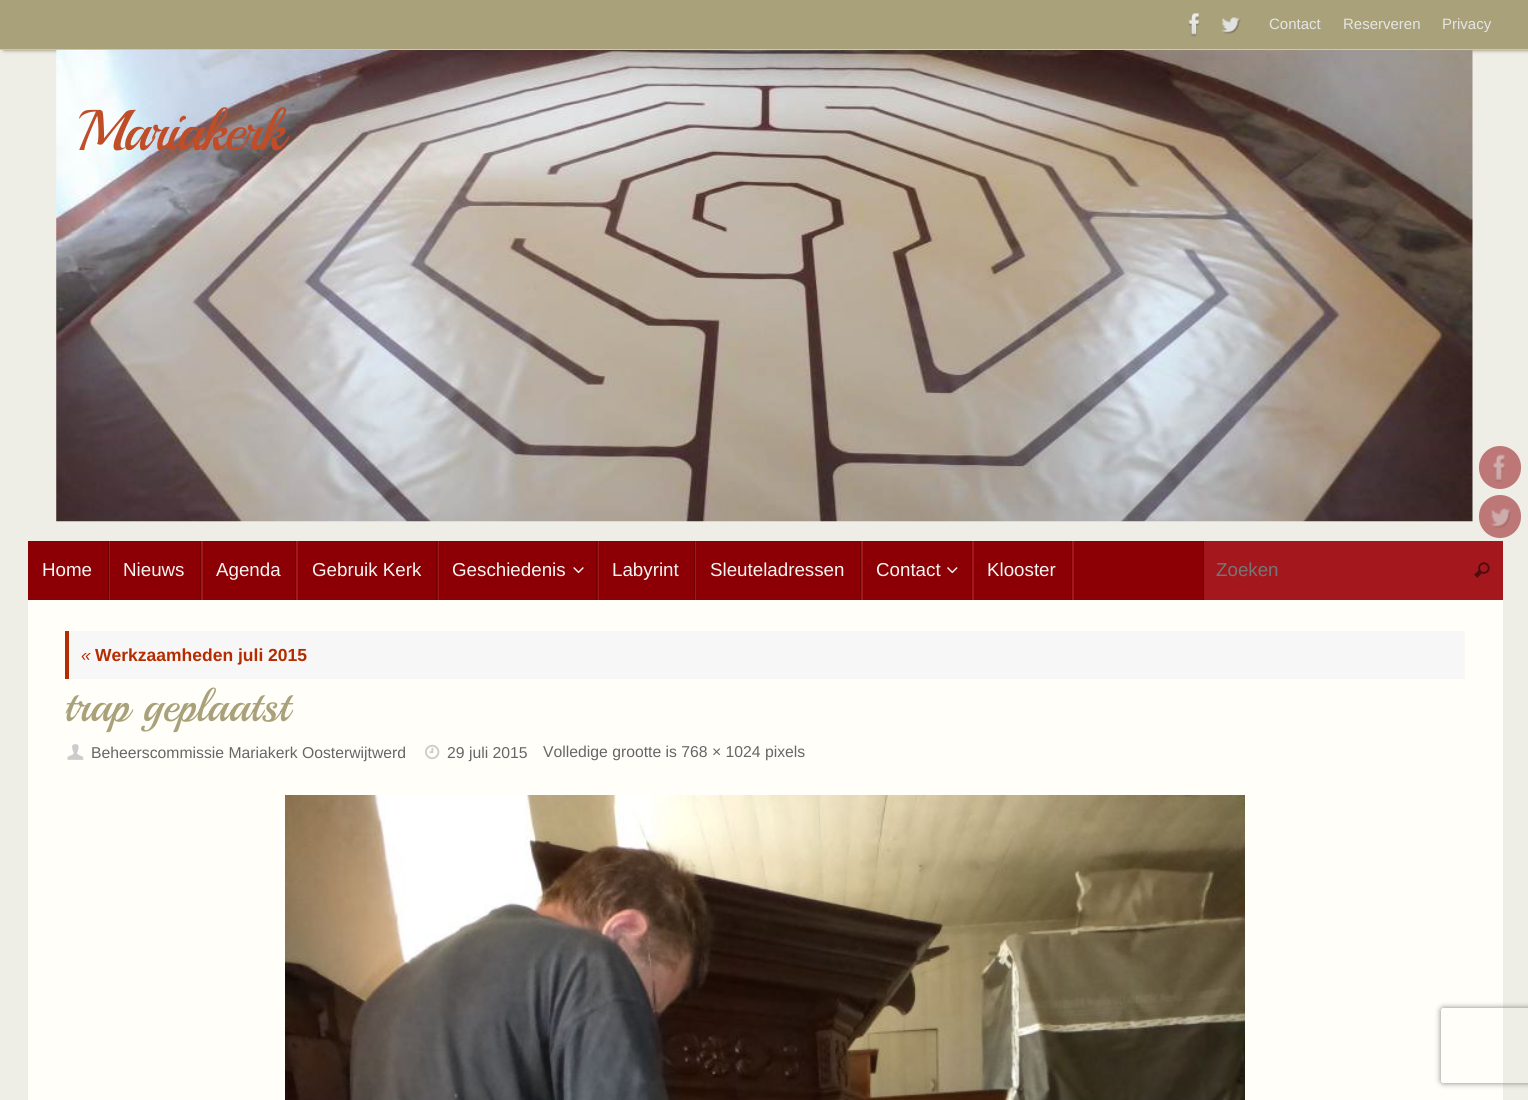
#include <cairo.h>
#include <math.h>
#include <stddef.h>

typedef struct { const char *family; double size; int italic, bold; unsigned color; } style_t;
static cairo_t *ctx;

static void ink(unsigned color) {
    cairo_set_source_rgb(ctx, (color >> 16) / 255.0, (color >> 8 & 255) / 255.0, (color & 255) / 255.0);
}

static void write(double x, double y, const char *s, const style_t *st) {
    cairo_select_font_face(ctx, st->family, st->italic ? CAIRO_FONT_SLANT_ITALIC : CAIRO_FONT_SLANT_NORMAL,
        st->bold ? CAIRO_FONT_WEIGHT_BOLD : CAIRO_FONT_WEIGHT_NORMAL);
    cairo_set_font_size(ctx, st->size);
    ink(st->color);
    cairo_move_to(ctx, x, y);
    cairo_show_text(ctx, s);
}

static void write_spaced(double x, double y, const char *s, double letter, double word) {
    cairo_move_to(ctx, x, y);
    while (*s) {
        char ch[5] = {0};
        int n = 0;
        do ch[n++] = *s++; while ((*s & 0xC0) == 0x80);
        cairo_show_text(ctx, ch);
        cairo_rel_move_to(ctx, letter + word * (*ch == ' '), 0);
    }
}

static void block(double x, double y, double w, double h, unsigned color) {
    ink(color);
    cairo_rectangle(ctx, x, y, w, h);
    cairo_fill(ctx);
}

static void round_path(double x, double y, double w, double h, double r) {
    cairo_new_sub_path(ctx);
    cairo_arc(ctx, x + w - r, y + h - r, r, 0, M_PI / 2);
    cairo_arc(ctx, x + r, y + h - r, r, M_PI / 2, M_PI);
    cairo_arc(ctx, x + r, y + r, r, M_PI, 1.5 * M_PI);
    cairo_arc(ctx, x + w - r, y + r, r, 1.5 * M_PI, 2 * M_PI);
    cairo_close_path(ctx);
}

static void blur_box(double x, double y, double w, double h, double r, double blur, double alpha) {
    cairo_push_group_with_content(ctx, CAIRO_CONTENT_ALPHA);
    cairo_set_operator(ctx, CAIRO_OPERATOR_SOURCE);
    for (int i = 15; i >= -15 && fmin(w, h) + blur * i / 3 > 0; i -= 2) {
        double e = blur * i / 6;
        cairo_set_source_rgba(ctx, 0, 0, 0, alpha * erfc((i - 1) / 8.5) / 2);
        round_path(x - e, y - e, w + 2 * e, h + 2 * e, fmax(0, fmin(r + e + blur * .6, fmin(w, h) / 2 + e)));
        cairo_fill(ctx);
    }
    cairo_pattern_t *soft = cairo_pop_group(ctx);
    cairo_mask(ctx, soft);
    cairo_pattern_destroy(soft);
}

static void paste(const char *path, double x, double y, double w, double h) {
    cairo_surface_t *image = cairo_image_surface_create_from_png(path);
    cairo_save(ctx);
    cairo_set_source_surface(ctx, image, x, y);
    cairo_rectangle(ctx, x, y, w, h);
    cairo_fill(ctx);
    cairo_restore(ctx);
    cairo_surface_destroy(image);
}

static const style_t s1 = {"Liberation Sans", 15, 0, 0, 0xe5e5e5};
static const style_t s2 = {"Liberation Sans", 18.75, 0, 0, 0xf6f5f1};
static const style_t s3 = {"Liberation Sans", 18.75, 0, 0, 0x757575};
static const style_t s4 = {"Liberation Sans", 17.5, 1, 0, 0xb52c00};
static const style_t s5 = {"Liberation Sans", 17.5, 0, 1, 0xb52c00};
static const style_t s6 = {"Playball", 45, 0, 0, 0xa9a17a};
static const style_t s7 = {"Liberation Sans", 15.75, 0, 0, 0x666666};

int main(void) {
    cairo_surface_t *surface = cairo_image_surface_create(CAIRO_FORMAT_RGB24, 1528, 1100);
    ctx = cairo_create(surface);
    cairo_font_options_t *options = cairo_font_options_create();
    cairo_font_options_set_hint_metrics(options, CAIRO_HINT_METRICS_OFF);
    cairo_font_options_set_hint_style(options, CAIRO_HINT_STYLE_NONE);
    cairo_set_font_options(ctx, options);
    cairo_set_miter_limit(ctx, 4);
    ink(0xeeede6);
    cairo_paint(ctx);
    ink(0x817952);
    blur_box(4, 0, 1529, 50, 0, 2, 1);
    block(0, 0, 1528, 49, 0xa9a17a);
    block(0, 49, 1528, 1, 0xd1c9a2);
    paste("pic1.png", 1188, 13, 12, 24);
    paste("pic2.png", 1221, 17, 20, 17);
    write(1269, 29, "Contact", &s1);
    write(1343, 29, "Reserveren", &s1);
    write(1442, 29, "Privacy", &s1);
    paste("pic3.png", 56, 50, 1417, 472);
    cairo_select_font_face(ctx, "Playball", CAIRO_FONT_SLANT_NORMAL, CAIRO_FONT_WEIGHT_NORMAL);
    cairo_set_font_size(ctx, 57.5);
    ink(0xbf4d28);
    write_spaced(77, 150, "Mariakerk", -1.75, 0);
    block(28, 541, 1175, 59, 0x8c0005);
    ink(0xa4181d);
    cairo_new_path(ctx);
    cairo_move_to(ctx, 29, 541);
    cairo_line_to(ctx, 109, 541);
    cairo_line_to(ctx, 109, 600);
    cairo_line_to(ctx, 110, 600);
    cairo_line_to(ctx, 110, 541);
    cairo_close_path(ctx);
    cairo_fill(ctx);
    block(108, 541, 1, 59, 0x6e0000);
    write(42, 576, "Home", &s2);
    ink(0xa4181d);
    cairo_new_path(ctx);
    cairo_move_to(ctx, 110, 541);
    cairo_line_to(ctx, 201, 541);
    cairo_line_to(ctx, 201, 600);
    cairo_line_to(ctx, 203, 600);
    cairo_line_to(ctx, 203, 541);
    cairo_close_path(ctx);
    cairo_fill(ctx);
    block(200, 541, 1, 59, 0x6e0000);
    write(123, 576, "Nieuws", &s2);
    ink(0xa4181d);
    cairo_new_path(ctx);
    cairo_move_to(ctx, 203, 541);
    cairo_line_to(ctx, 296, 541);
    cairo_line_to(ctx, 296, 600);
    cairo_line_to(ctx, 298, 600);
    cairo_line_to(ctx, 298, 541);
    cairo_close_path(ctx);
    cairo_fill(ctx);
    block(295, 541, 1, 59, 0x6e0000);
    write(216, 576, "Agenda", &s2);
    ink(0xa4181d);
    cairo_new_path(ctx);
    cairo_move_to(ctx, 298, 541);
    cairo_line_to(ctx, 438, 541);
    cairo_line_to(ctx, 438, 600);
    cairo_line_to(ctx, 439, 600);
    cairo_line_to(ctx, 439, 541);
    cairo_close_path(ctx);
    cairo_fill(ctx);
    block(436, 541, 1, 59, 0x6e0000);
    write(312, 576, "Gebruik Kerk", &s2);
    ink(0xa4181d);
    cairo_new_path(ctx);
    cairo_move_to(ctx, 439, 541);
    cairo_line_to(ctx, 598, 541);
    cairo_line_to(ctx, 598, 600);
    cairo_line_to(ctx, 599, 600);
    cairo_line_to(ctx, 599, 541);
    cairo_close_path(ctx);
    cairo_fill(ctx);
    block(596, 541, 1, 59, 0x6e0000);
    write(452, 576, "Geschiedenis", &s2);
    paste("pic4.png", 573, 567, 11, 7);
    ink(0xa4181d);
    cairo_new_path(ctx);
    cairo_move_to(ctx, 599, 541);
    cairo_line_to(ctx, 695, 541);
    cairo_line_to(ctx, 695, 600);
    cairo_line_to(ctx, 696, 600);
    cairo_line_to(ctx, 696, 541);
    cairo_close_path(ctx);
    cairo_fill(ctx);
    block(694, 541, 1, 59, 0x6e0000);
    write(612, 576, "Labyrint", &s2);
    ink(0xa4181d);
    cairo_new_path(ctx);
    cairo_move_to(ctx, 696, 541);
    cairo_line_to(ctx, 861, 541);
    cairo_line_to(ctx, 861, 600);
    cairo_line_to(ctx, 863, 600);
    cairo_line_to(ctx, 863, 541);
    cairo_close_path(ctx);
    cairo_fill(ctx);
    block(860, 541, 1, 59, 0x6e0000);
    write(710, 576, "Sleuteladressen", &s2);
    ink(0xa4181d);
    cairo_new_path(ctx);
    cairo_move_to(ctx, 863, 541);
    cairo_line_to(ctx, 972, 541);
    cairo_line_to(ctx, 972, 600);
    cairo_line_to(ctx, 974, 600);
    cairo_line_to(ctx, 974, 541);
    cairo_close_path(ctx);
    cairo_fill(ctx);
    block(971, 541, 1, 59, 0x6e0000);
    write(876, 576, "Contact", &s2);
    paste("pic5.png", 947, 567, 11, 7);
    ink(0xa4181d);
    cairo_new_path(ctx);
    cairo_move_to(ctx, 974, 541);
    cairo_line_to(ctx, 1072, 541);
    cairo_line_to(ctx, 1072, 600);
    cairo_line_to(ctx, 1074, 600);
    cairo_line_to(ctx, 1074, 541);
    cairo_close_path(ctx);
    cairo_fill(ctx);
    block(1071, 541, 1, 59, 0x6e0000);
    write(987, 576, "Klooster", &s2);
    block(1204, 541, 299, 59, 0xa4181d);
    block(1203, 541, 1, 59, 0x6e0000);
    write(1216, 576, "Zoeken", &s3);
    paste("pic6.png", 1474, 562, 16, 16);
    ink(0xbd7776);
    round_path(1479, 446, 42, 43, 21);
    cairo_fill(ctx);
    paste("pic7.png", 1493, 454, 12, 28);
    round_path(1479, 495, 42, 43, 21);
    cairo_fill(ctx);
    paste("pic8.png", 1491, 508, 20, 20);
    block(28, 600, 1475, 500, 0xfffef9);
    block(69, 631, 1396, 48, 0xf7f7f7);
    block(65, 631, 4, 48, 0xb52c00);
    write(81, 661, "«", &s4);
    write(95, 661, "Werkzaamheden juli 2015", &s5);
    write(64, 721, "trap geplaatst", &s6);
    paste("pic9.png", 67, 744, 17, 16);
    write(91, 758, "Beheerscommissie Mariakerk Oosterwijtwerd", &s7);
    paste("pic10.png", 425, 744, 15, 16);
    write(447, 758, "29 juli 2015", &s7);
    write(543, 757, "Volledige grootte is 768 × 1024 pixels", &s7);
    paste("pic11.png", 285, 795, 960, 305);
    cairo_save(ctx);
    cairo_set_fill_rule(ctx, CAIRO_FILL_RULE_EVEN_ODD);
    cairo_new_path(ctx);
    cairo_move_to(ctx, 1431, 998);
    cairo_line_to(ctx, 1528, 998);
    cairo_line_to(ctx, 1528, 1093);
    cairo_line_to(ctx, 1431, 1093);
    cairo_close_path(ctx);
    cairo_move_to(ctx, 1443.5, 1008);
    cairo_line_to(ctx, 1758.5, 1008);
    cairo_curve_to(ctx, 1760, 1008, 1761, 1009, 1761, 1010.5);
    cairo_line_to(ctx, 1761, 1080.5);
    cairo_curve_to(ctx, 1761, 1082, 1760, 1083, 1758.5, 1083);
    cairo_line_to(ctx, 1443.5, 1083);
    cairo_curve_to(ctx, 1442, 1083, 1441, 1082, 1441, 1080.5);
    cairo_line_to(ctx, 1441, 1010.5);
    cairo_curve_to(ctx, 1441, 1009, 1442, 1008, 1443.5, 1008);
    cairo_close_path(ctx);
    cairo_clip(ctx);
    ink(0x808080);
    blur_box(1441, 1008, 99, 75, 2.5, 3, 1);
    cairo_restore(ctx);
    cairo_surface_write_to_png(surface, "screenshot.png");
    cairo_font_options_destroy(options);
    cairo_destroy(ctx);
    cairo_surface_destroy(surface);
    return 0;
}
